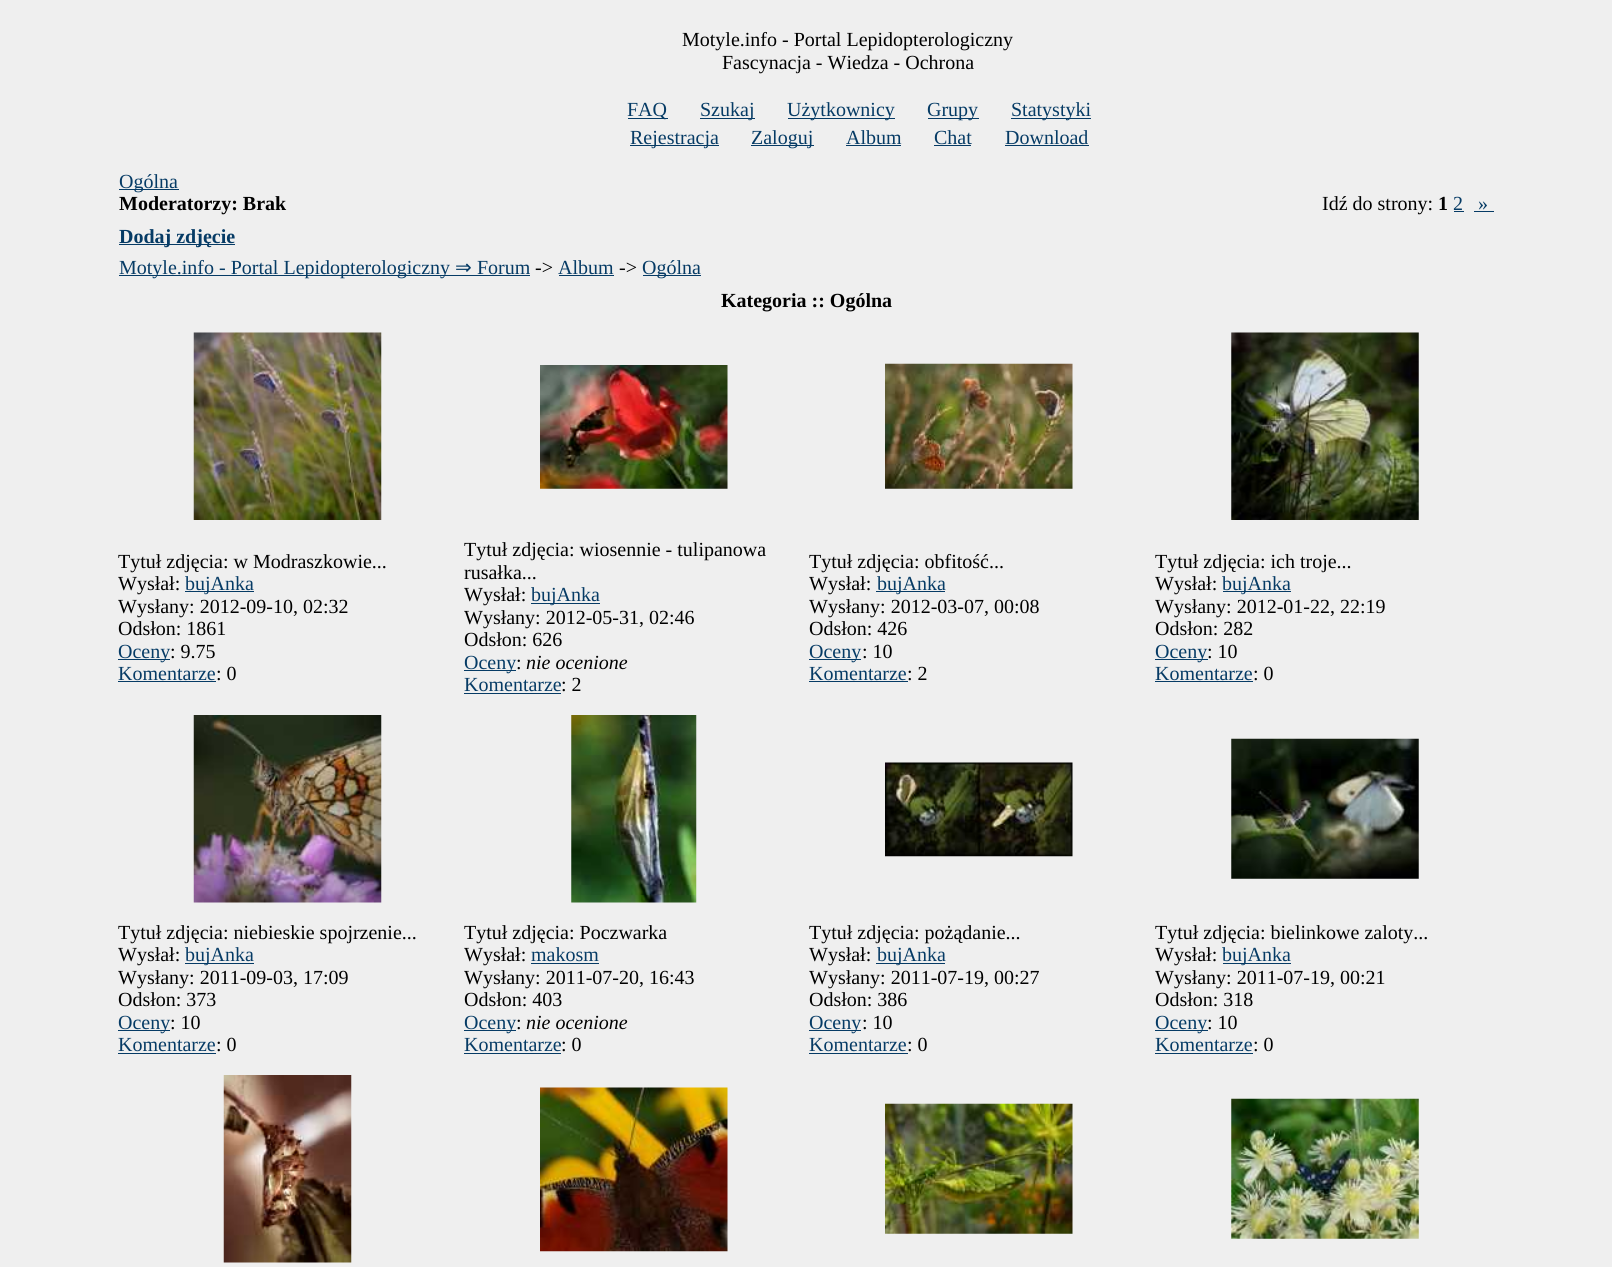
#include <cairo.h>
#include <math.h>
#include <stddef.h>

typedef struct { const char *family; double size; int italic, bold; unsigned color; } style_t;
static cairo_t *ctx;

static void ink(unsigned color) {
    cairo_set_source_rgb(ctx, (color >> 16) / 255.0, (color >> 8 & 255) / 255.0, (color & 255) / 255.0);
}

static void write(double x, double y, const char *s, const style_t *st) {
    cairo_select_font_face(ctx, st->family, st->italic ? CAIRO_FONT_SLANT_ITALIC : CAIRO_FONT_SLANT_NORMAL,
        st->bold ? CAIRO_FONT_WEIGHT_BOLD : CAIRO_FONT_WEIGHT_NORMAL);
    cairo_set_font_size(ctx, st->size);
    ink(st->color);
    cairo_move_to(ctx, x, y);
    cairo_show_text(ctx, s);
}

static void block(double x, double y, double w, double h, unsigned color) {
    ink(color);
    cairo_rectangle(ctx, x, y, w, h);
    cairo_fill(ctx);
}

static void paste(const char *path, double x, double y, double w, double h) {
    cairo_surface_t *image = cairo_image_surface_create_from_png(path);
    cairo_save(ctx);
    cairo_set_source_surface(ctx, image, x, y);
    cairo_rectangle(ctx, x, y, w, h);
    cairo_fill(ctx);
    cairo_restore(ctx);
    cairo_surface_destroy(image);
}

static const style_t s1 = {"Liberation Serif", 20, 0, 0, 0x000000};
static const style_t s2 = {"Liberation Serif", 20, 0, 0, 0x063b65};
static const style_t s3 = {"Liberation Serif", 20, 0, 1, 0x000000};
static const style_t s4 = {"Liberation Serif", 20, 0, 1, 0x063b65};
static const style_t s5 = {"DejaVu Sans", 20, 0, 0, 0x063b65};
static const style_t s6 = {"Liberation Serif", 20, 1, 0, 0x000000};

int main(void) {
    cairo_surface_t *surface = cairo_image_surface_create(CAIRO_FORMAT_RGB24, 1612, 1267);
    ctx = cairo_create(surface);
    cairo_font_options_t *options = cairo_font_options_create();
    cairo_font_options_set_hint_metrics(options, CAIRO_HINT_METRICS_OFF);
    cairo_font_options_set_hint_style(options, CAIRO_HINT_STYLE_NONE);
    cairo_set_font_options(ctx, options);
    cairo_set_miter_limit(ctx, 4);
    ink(0xefefef);
    cairo_paint(ctx);
    write(682, 46, "Motyle.info - Portal Lepidopterologiczny", &s1);
    write(722, 69, "Fascynacja - Wiedza - Ochrona", &s1);
    block(628, 118, 40, 1, 0x063b65);
    write(627, 116, "FAQ", &s2);
    block(700, 118, 55, 1, 0x063b65);
    write(700, 116, "Szukaj", &s2);
    block(788, 118, 107, 1, 0x063b65);
    write(787, 116, "Użytkownicy", &s2);
    block(928, 118, 51, 1, 0x063b65);
    write(927, 116, "Grupy", &s2);
    block(1011, 118, 80, 1, 0x063b65);
    write(1011, 116, "Statystyki", &s2);
    block(630, 145, 89, 1, 0x063b65);
    write(630, 144, "Rejestracja", &s2);
    block(751, 145, 63, 1, 0x063b65);
    write(751, 144, "Zaloguj", &s2);
    write(846, 144, "Album", &s2);
    block(846, 145, 55, 1, 0x063b65);
    write(934, 144, "Chat", &s2);
    block(934, 145, 37, 1, 0x063b65);
    write(1005, 144, "Download", &s2);
    block(1005, 145, 84, 1, 0x063b65);
    block(119, 189, 60, 1, 0x063b65);
    write(119, 188, "Ogólna", &s2);
    write(119, 210, "Moderatorzy: Brak", &s3);
    write(1322, 210, "Idź do strony:", &s1);
    write(1438, 210, "1", &s3);
    write(1453, 210, "2", &s2);
    block(1454, 211, 10, 1, 0x063b65);
    write(1478, 210, "»", &s2);
    block(1474, 211, 20, 1, 0x063b65);
    block(119, 244, 116, 1, 0x063b65);
    write(119, 243, "Dodaj zdjęcie", &s4);
    block(119, 275, 411, 1, 0x063b65);
    write(119, 274, "Motyle.info - Portal Lepidopterologiczny", &s2);
    write(455, 274, "⇒", &s5);
    write(477, 274, "Forum", &s2);
    write(535, 274, "->", &s1);
    write(558, 274, "Album", &s2);
    block(559, 275, 55, 1, 0x063b65);
    write(619, 274, "->", &s1);
    block(643, 275, 58, 1, 0x063b65);
    write(642, 274, "Ogólna", &s2);
    write(721, 307, "Kategoria :: Ogólna", &s3);
    paste("pic1.png", 193, 332, 189, 188);
    paste("pic2.png", 540, 365, 188, 124);
    paste("pic3.png", 885, 363, 188, 126);
    paste("pic4.png", 1231, 332, 188, 188);
    write(118, 568, "Tytuł zdjęcia: w Modraszkowie...", &s1);
    write(118, 590, "Wysłał:", &s1);
    block(185, 591, 69, 1, 0x063b65);
    write(185, 590, "bujAnka", &s2);
    write(118, 613, "Wysłany: 2012-09-10, 02:32", &s1);
    write(118, 635, "Odsłon: 1861", &s1);
    block(118, 659, 52, 1, 0x063b65);
    write(118, 658, "Oceny", &s2);
    write(170, 658, ": 9.75", &s1);
    write(118, 680, "Komentarze", &s2);
    block(118, 681, 98, 1, 0x063b65);
    write(216, 680, ": 0", &s1);
    write(464, 556, "Tytuł zdjęcia: wiosennie - tulipanowa", &s1);
    write(464, 579, "rusałka...", &s1);
    write(464, 601, "Wysłał:", &s1);
    block(531, 603, 69, 1, 0x063b65);
    write(531, 601, "bujAnka", &s2);
    write(464, 624, "Wysłany: 2012-05-31, 02:46", &s1);
    write(464, 646, "Odsłon: 626", &s1);
    block(464, 670, 52, 1, 0x063b65);
    write(464, 669, "Oceny", &s2);
    write(516, 669, ":", &s1);
    write(526, 669, "nie ocenione", &s6);
    write(464, 691, "Komentarze", &s2);
    block(464, 693, 97, 1, 0x063b65);
    write(561, 691, ": 2", &s1);
    write(809, 568, "Tytuł zdjęcia: obfitość...", &s1);
    write(809, 590, "Wysłał:", &s1);
    block(876, 591, 69, 1, 0x063b65);
    write(877, 590, "bujAnka", &s2);
    write(809, 613, "Wysłany: 2012-03-07, 00:08", &s1);
    write(809, 635, "Odsłon: 426", &s1);
    block(809, 659, 52, 1, 0x063b65);
    write(809, 658, "Oceny", &s2);
    write(862, 658, ": 10", &s1);
    write(809, 680, "Komentarze", &s2);
    block(809, 681, 99, 1, 0x063b65);
    write(907, 680, ": 2", &s1);
    write(1155, 568, "Tytuł zdjęcia: ich troje...", &s1);
    write(1155, 590, "Wysłał:", &s1);
    block(1223, 591, 68, 1, 0x063b65);
    write(1222, 590, "bujAnka", &s2);
    write(1155, 613, "Wysłany: 2012-01-22, 22:19", &s1);
    write(1155, 635, "Odsłon: 282", &s1);
    block(1155, 659, 53, 1, 0x063b65);
    write(1155, 658, "Oceny", &s2);
    write(1207, 658, ": 10", &s1);
    write(1155, 680, "Komentarze", &s2);
    block(1155, 681, 98, 1, 0x063b65);
    write(1253, 680, ": 0", &s1);
    paste("pic5.png", 193, 715, 189, 188);
    paste("pic6.png", 571, 715, 126, 188);
    paste("pic7.png", 885, 762, 188, 95);
    paste("pic8.png", 1231, 738, 188, 141);
    write(118, 939, "Tytuł zdjęcia: niebieskie spojrzenie...", &s1);
    write(118, 961, "Wysłał:", &s1);
    block(185, 963, 69, 1, 0x063b65);
    write(185, 961, "bujAnka", &s2);
    write(118, 984, "Wysłany: 2011-09-03, 17:09", &s1);
    write(118, 1006, "Odsłon: 373", &s1);
    block(118, 1030, 52, 1, 0x063b65);
    write(118, 1029, "Oceny", &s2);
    write(170, 1029, ": 10", &s1);
    write(118, 1051, "Komentarze", &s2);
    block(118, 1053, 98, 1, 0x063b65);
    write(216, 1051, ": 0", &s1);
    write(464, 939, "Tytuł zdjęcia: Poczwarka", &s1);
    write(464, 961, "Wysłał:", &s1);
    write(531, 961, "makosm", &s2);
    block(531, 963, 68, 1, 0x063b65);
    write(464, 984, "Wysłany: 2011-07-20, 16:43", &s1);
    write(464, 1006, "Odsłon: 403", &s1);
    block(464, 1030, 52, 1, 0x063b65);
    write(464, 1029, "Oceny", &s2);
    write(516, 1029, ":", &s1);
    write(526, 1029, "nie ocenione", &s6);
    write(464, 1051, "Komentarze", &s2);
    block(464, 1053, 97, 1, 0x063b65);
    write(561, 1051, ": 0", &s1);
    write(809, 939, "Tytuł zdjęcia: pożądanie...", &s1);
    write(809, 961, "Wysłał:", &s1);
    block(876, 963, 69, 1, 0x063b65);
    write(877, 961, "bujAnka", &s2);
    write(809, 984, "Wysłany: 2011-07-19, 00:27", &s1);
    write(809, 1006, "Odsłon: 386", &s1);
    block(809, 1030, 52, 1, 0x063b65);
    write(809, 1029, "Oceny", &s2);
    write(862, 1029, ": 10", &s1);
    write(809, 1051, "Komentarze", &s2);
    block(809, 1053, 99, 1, 0x063b65);
    write(907, 1051, ": 0", &s1);
    write(1155, 939, "Tytuł zdjęcia: bielinkowe zaloty...", &s1);
    write(1155, 961, "Wysłał:", &s1);
    block(1223, 963, 68, 1, 0x063b65);
    write(1222, 961, "bujAnka", &s2);
    write(1155, 984, "Wysłany: 2011-07-19, 00:21", &s1);
    write(1155, 1006, "Odsłon: 318", &s1);
    block(1155, 1030, 53, 1, 0x063b65);
    write(1155, 1029, "Oceny", &s2);
    write(1207, 1029, ": 10", &s1);
    write(1155, 1051, "Komentarze", &s2);
    block(1155, 1053, 98, 1, 0x063b65);
    write(1253, 1051, ": 0", &s1);
    paste("pic9.png", 223, 1075, 129, 188);
    paste("pic10.png", 540, 1087, 188, 165);
    paste("pic11.png", 885, 1103, 188, 131);
    paste("pic12.png", 1231, 1098, 188, 141);
    cairo_surface_write_to_png(surface, "screenshot.png");
    cairo_font_options_destroy(options);
    cairo_destroy(ctx);
    cairo_surface_destroy(surface);
    return 0;
}
